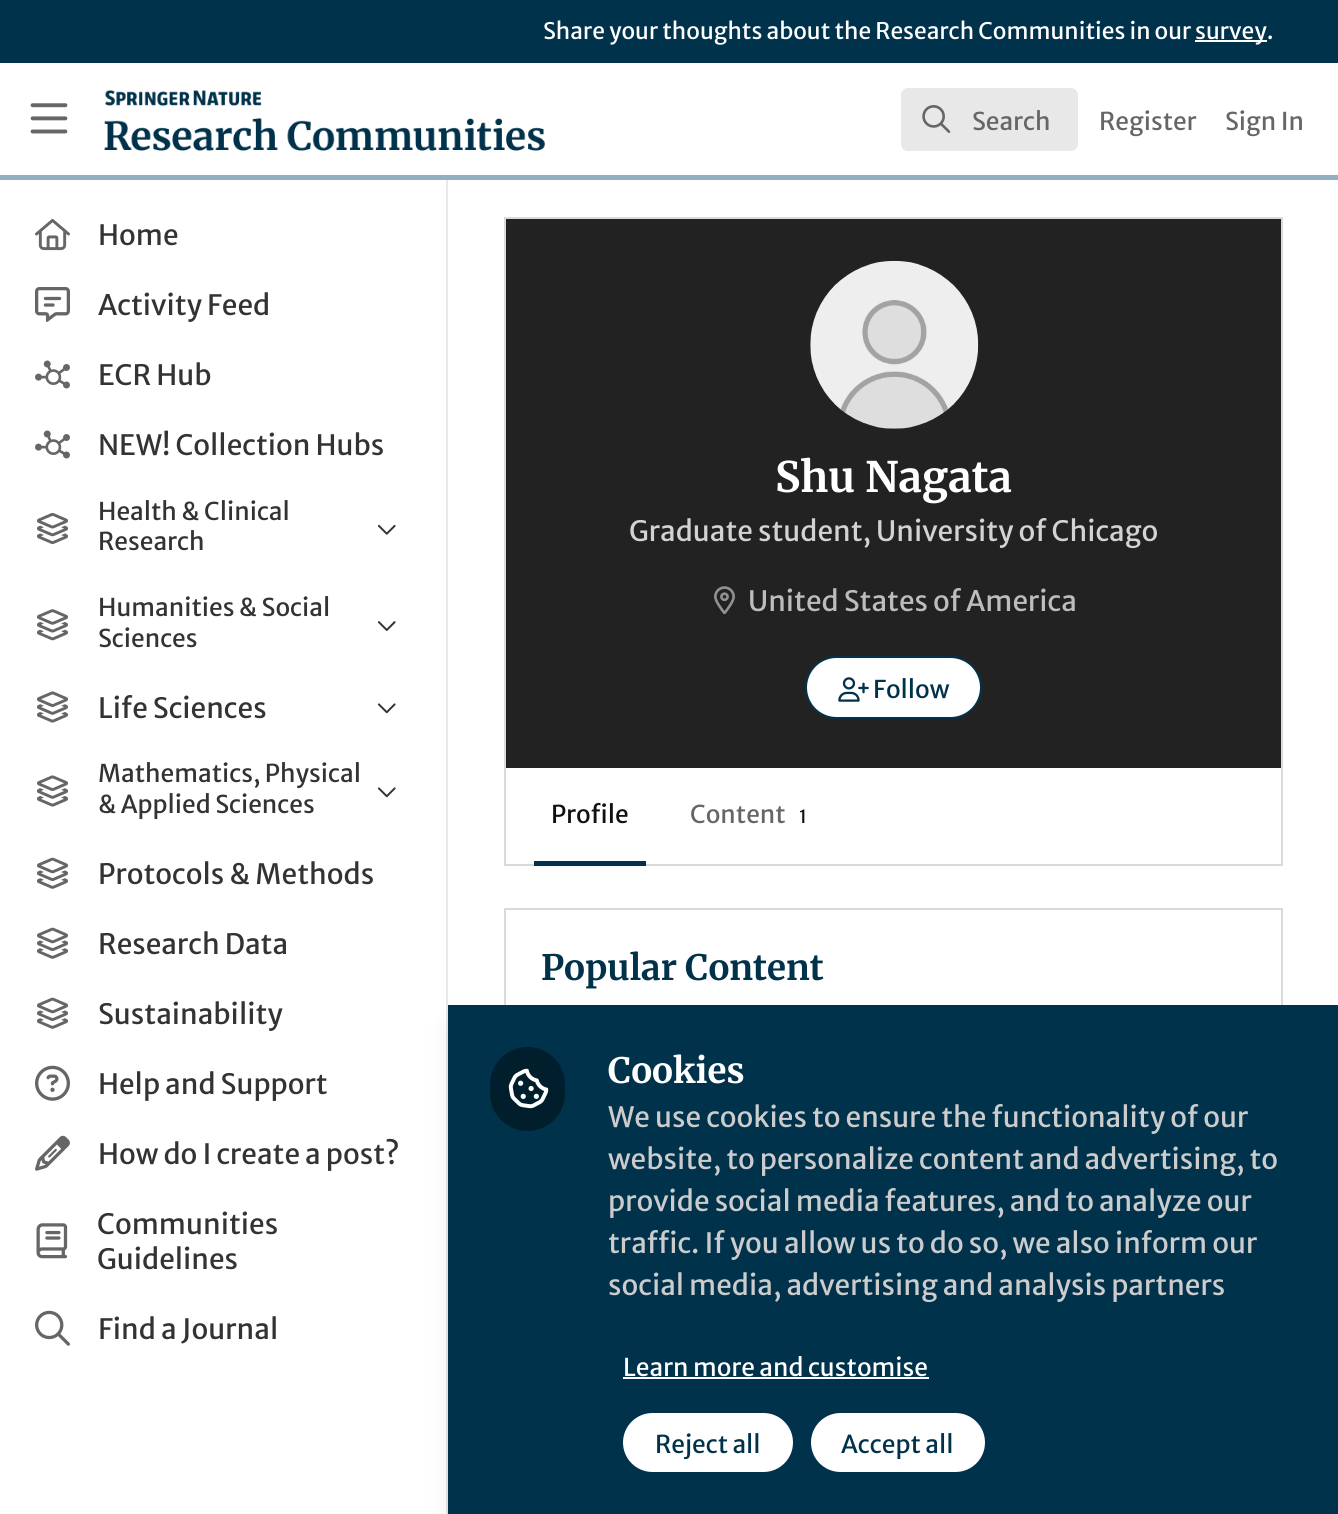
#include <cairo.h>
#include <math.h>
#include <stddef.h>

typedef struct { const char *family; double size; int italic, bold; unsigned color; } style_t;
static cairo_t *ctx;

static void ink(unsigned color) {
    cairo_set_source_rgb(ctx, (color >> 16) / 255.0, (color >> 8 & 255) / 255.0, (color & 255) / 255.0);
}

static void write(double x, double y, const char *s, const style_t *st) {
    cairo_select_font_face(ctx, st->family, st->italic ? CAIRO_FONT_SLANT_ITALIC : CAIRO_FONT_SLANT_NORMAL,
        st->bold ? CAIRO_FONT_WEIGHT_BOLD : CAIRO_FONT_WEIGHT_NORMAL);
    cairo_set_font_size(ctx, st->size);
    ink(st->color);
    cairo_move_to(ctx, x, y);
    cairo_show_text(ctx, s);
}

static void block(double x, double y, double w, double h, unsigned color) {
    ink(color);
    cairo_rectangle(ctx, x, y, w, h);
    cairo_fill(ctx);
}

static void round_path(double x, double y, double w, double h, double r) {
    cairo_new_sub_path(ctx);
    cairo_arc(ctx, x + w - r, y + h - r, r, 0, M_PI / 2);
    cairo_arc(ctx, x + r, y + h - r, r, M_PI / 2, M_PI);
    cairo_arc(ctx, x + r, y + r, r, M_PI, 1.5 * M_PI);
    cairo_arc(ctx, x + w - r, y + r, r, 1.5 * M_PI, 2 * M_PI);
    cairo_close_path(ctx);
}

static void blur_box(double x, double y, double w, double h, double r, double blur, double alpha) {
    cairo_push_group_with_content(ctx, CAIRO_CONTENT_ALPHA);
    cairo_set_operator(ctx, CAIRO_OPERATOR_SOURCE);
    for (int i = 15; i >= -15 && fmin(w, h) + blur * i / 3 > 0; i -= 2) {
        double e = blur * i / 6;
        cairo_set_source_rgba(ctx, 0, 0, 0, alpha * erfc((i - 1) / 8.5) / 2);
        round_path(x - e, y - e, w + 2 * e, h + 2 * e, fmax(0, fmin(r + e + blur * .6, fmin(w, h) / 2 + e)));
        cairo_fill(ctx);
    }
    cairo_pattern_t *soft = cairo_pop_group(ctx);
    cairo_mask(ctx, soft);
    cairo_pattern_destroy(soft);
}

static void paste(const char *path, double x, double y, double w, double h) {
    cairo_surface_t *image = cairo_image_surface_create_from_png(path);
    cairo_save(ctx);
    cairo_set_source_surface(ctx, image, x, y);
    cairo_rectangle(ctx, x, y, w, h);
    cairo_fill(ctx);
    cairo_restore(ctx);
    cairo_surface_destroy(image);
}

static const style_t s1 = {"Merriweather Sans", 22.75, 0, 0, 0xffffff};
static const style_t s2 = {"Merriweather Sans", 24.5, 0, 0, 0x666666};
static const style_t s3 = {"Merriweather Sans", 28, 0, 0, 0x333333};
static const style_t s4 = {"Merriweather Sans", 24.5, 0, 0, 0x333333};
static const style_t s5 = {"Merriweather", 42, 0, 1, 0xffffff};
static const style_t s6 = {"Merriweather Sans", 28, 0, 0, 0xd3d3d3};
static const style_t s7 = {"Merriweather Sans", 28, 0, 0, 0xbdbdbd};
static const style_t s8 = {"Merriweather Sans", 24.5, 0, 0, 0x01324b};
static const style_t s9 = {"Merriweather Sans", 24.5, 0, 0, 0x111111};
static const style_t s10 = {"Merriweather Sans", 18, 0, 0, 0x111111};
static const style_t s11 = {"Merriweather", 35, 0, 1, 0x01324b};
static const style_t s12 = {"Merriweather", 35, 0, 1, 0xffffff};
static const style_t s13 = {"Merriweather Sans", 28, 0, 0, 0xcccccc};
static const style_t s14 = {"Merriweather Sans", 24.5, 0, 0, 0xffffff};

int main(void) {
    cairo_surface_t *surface = cairo_image_surface_create(CAIRO_FORMAT_RGB24, 1338, 1514);
    ctx = cairo_create(surface);
    cairo_font_options_t *options = cairo_font_options_create();
    cairo_font_options_set_hint_metrics(options, CAIRO_HINT_METRICS_OFF);
    cairo_font_options_set_hint_style(options, CAIRO_HINT_STYLE_NONE);
    cairo_set_font_options(ctx, options);
    cairo_set_miter_limit(ctx, 4);
    ink(0xffffff);
    cairo_paint(ctx);
    block(0, 0, 1338, 63, 0x01324b);
    write(543, 39, "Share your thoughts about the Research Communities in our", &s1);
    block(1195, 40, 72, 2, 0xffffff);
    write(1195, 39, "survey.", &s1);
    block(446, 175, 2, 1339, 0xe8e8e8);
    ink(0x90b0c2);
    cairo_new_path(ctx);
    cairo_move_to(ctx, 0, 175);
    cairo_line_to(ctx, 0, 180);
    cairo_line_to(ctx, 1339, 180);
    cairo_line_to(ctx, 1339, 68);
    cairo_line_to(ctx, 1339, 175);
    cairo_close_path(ctx);
    cairo_fill(ctx);
    paste("pic1.png", 30, 103, 38, 31);
    paste("pic2.png", 104, 89, 442, 62);
    ink(0xe8e8e8);
    round_path(901, 88, 177, 63, 7);
    cairo_fill(ctx);
    paste("pic3.png", 922, 105, 29, 28);
    write(972, 130, "Search", &s2);
    write(1099, 130, "Register", &s2);
    write(1225, 130, "Sign In", &s2);
    paste("pic4.png", 35, 219, 35, 32);
    write(98, 245, "Home", &s3);
    paste("pic5.png", 35, 287, 35, 35);
    write(98, 315, "Activity Feed", &s3);
    paste("pic6.png", 35, 360, 35, 29);
    write(98, 385, "ECR Hub", &s3);
    paste("pic6.png", 35, 430, 35, 29);
    write(98, 455, "NEW! Collection Hubs", &s3);
    paste("pic7.png", 37, 512, 31, 33);
    write(98, 520, "Health & Clinical", &s4);
    write(98, 550, "Research", &s4);
    paste("pic8.png", 377, 524, 19, 11);
    paste("pic9.png", 37, 609, 31, 32);
    write(98, 616, "Humanities & Social", &s4);
    write(98, 647, "Sciences", &s4);
    paste("pic10.png", 377, 621, 19, 10);
    paste("pic11.png", 37, 691, 31, 32);
    write(98, 718, "Life Sciences", &s3);
    paste("pic12.png", 377, 703, 19, 11);
    paste("pic11.png", 37, 775, 31, 32);
    write(98, 782, "Mathematics, Physical", &s4);
    write(98, 813, "& Applied Sciences", &s4);
    paste("pic12.png", 377, 787, 19, 11);
    paste("pic13.png", 37, 857, 31, 32);
    write(98, 884, "Protocols & Methods", &s3);
    paste("pic13.png", 37, 927, 31, 32);
    write(98, 954, "Research Data", &s3);
    paste("pic13.png", 37, 997, 31, 32);
    write(98, 1024, "Sustainability", &s3);
    paste("pic14.png", 35, 1065, 35, 36);
    write(98, 1094, "Help and Support", &s3);
    paste("pic15.png", 35, 1135, 35, 36);
    write(98, 1164, "How do I create a post?", &s3);
    paste("pic16.png", 36, 1223, 32, 36);
    write(97, 1234, "Communities", &s3);
    write(97, 1269, "Guidelines", &s3);
    paste("pic17.png", 35, 1310, 35, 36);
    write(98, 1339, "Find a Journal", &s3);
    cairo_rectangle(ctx, 505, 218, 777, 647);
    ink(0xdadada);
    cairo_stroke(ctx);
    block(506, 219, 775, 549, 0x222222);
    paste("pic18.png", 810, 260, 169, 169);
    write(775, 492, "Shu Nagata", &s5);
    write(629, 541, "Graduate student, University of Chicago", &s6);
    paste("pic19.png", 714, 586, 21, 29);
    write(748, 611, "United States of America", &s7);
    ink(0xffffff);
    round_path(806, 657, 175, 61, 30.5);
    cairo_fill_preserve(ctx);
    ink(0x01324b);
    cairo_stroke(ctx);
    paste("pic20.png", 838, 677, 31, 25);
    write(873, 698, "Follow", &s8);
    block(534, 861, 112, 5, 0x01324b);
    write(551, 823, "Profile", &s9);
    write(690, 823, "Content", &s2);
    write(799, 823, "1", &s10);
    cairo_rectangle(ctx, 505, 909, 777, 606);
    ink(0xdadada);
    cairo_stroke(ctx);
    write(541, 980, "Popular Content", &s11);
    ink(0x000000);
    blur_box(453, 1027, 881, 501, 0, 13, 0.1);
    block(448, 1005, 890, 509, 0x01324b);
    ink(0x011e2d);
    round_path(490, 1047, 75, 84, 37.5);
    cairo_fill(ctx);
    paste("pic21.png", 508, 1068, 41, 41);
    write(608, 1083, "Cookies", &s12);
    write(608, 1127, "We use cookies to ensure the functionality of our", &s13);
    write(608, 1169, "website, to personalize content and advertising, to", &s13);
    write(608, 1211, "provide social media features, and to analyze our", &s13);
    write(608, 1253, "traffic. If you allow us to do so, we also inform our", &s13);
    write(608, 1295, "social media, advertising and analysis partners", &s13);
    write(623, 1376, "Learn more and customise", &s14);
    block(623, 1377, 306, 2, 0xffffff);
    round_path(622, 1412, 172, 61, 30.5);
    cairo_fill_preserve(ctx);
    ink(0x01324b);
    cairo_stroke(ctx);
    write(655, 1453, "Reject all", &s8);
    ink(0xffffff);
    round_path(810, 1412, 176, 61, 30.5);
    cairo_fill_preserve(ctx);
    ink(0x01324b);
    cairo_stroke(ctx);
    write(841, 1453, "Accept all", &s8);
    cairo_surface_write_to_png(surface, "screenshot.png");
    cairo_font_options_destroy(options);
    cairo_destroy(ctx);
    cairo_surface_destroy(surface);
    return 0;
}
